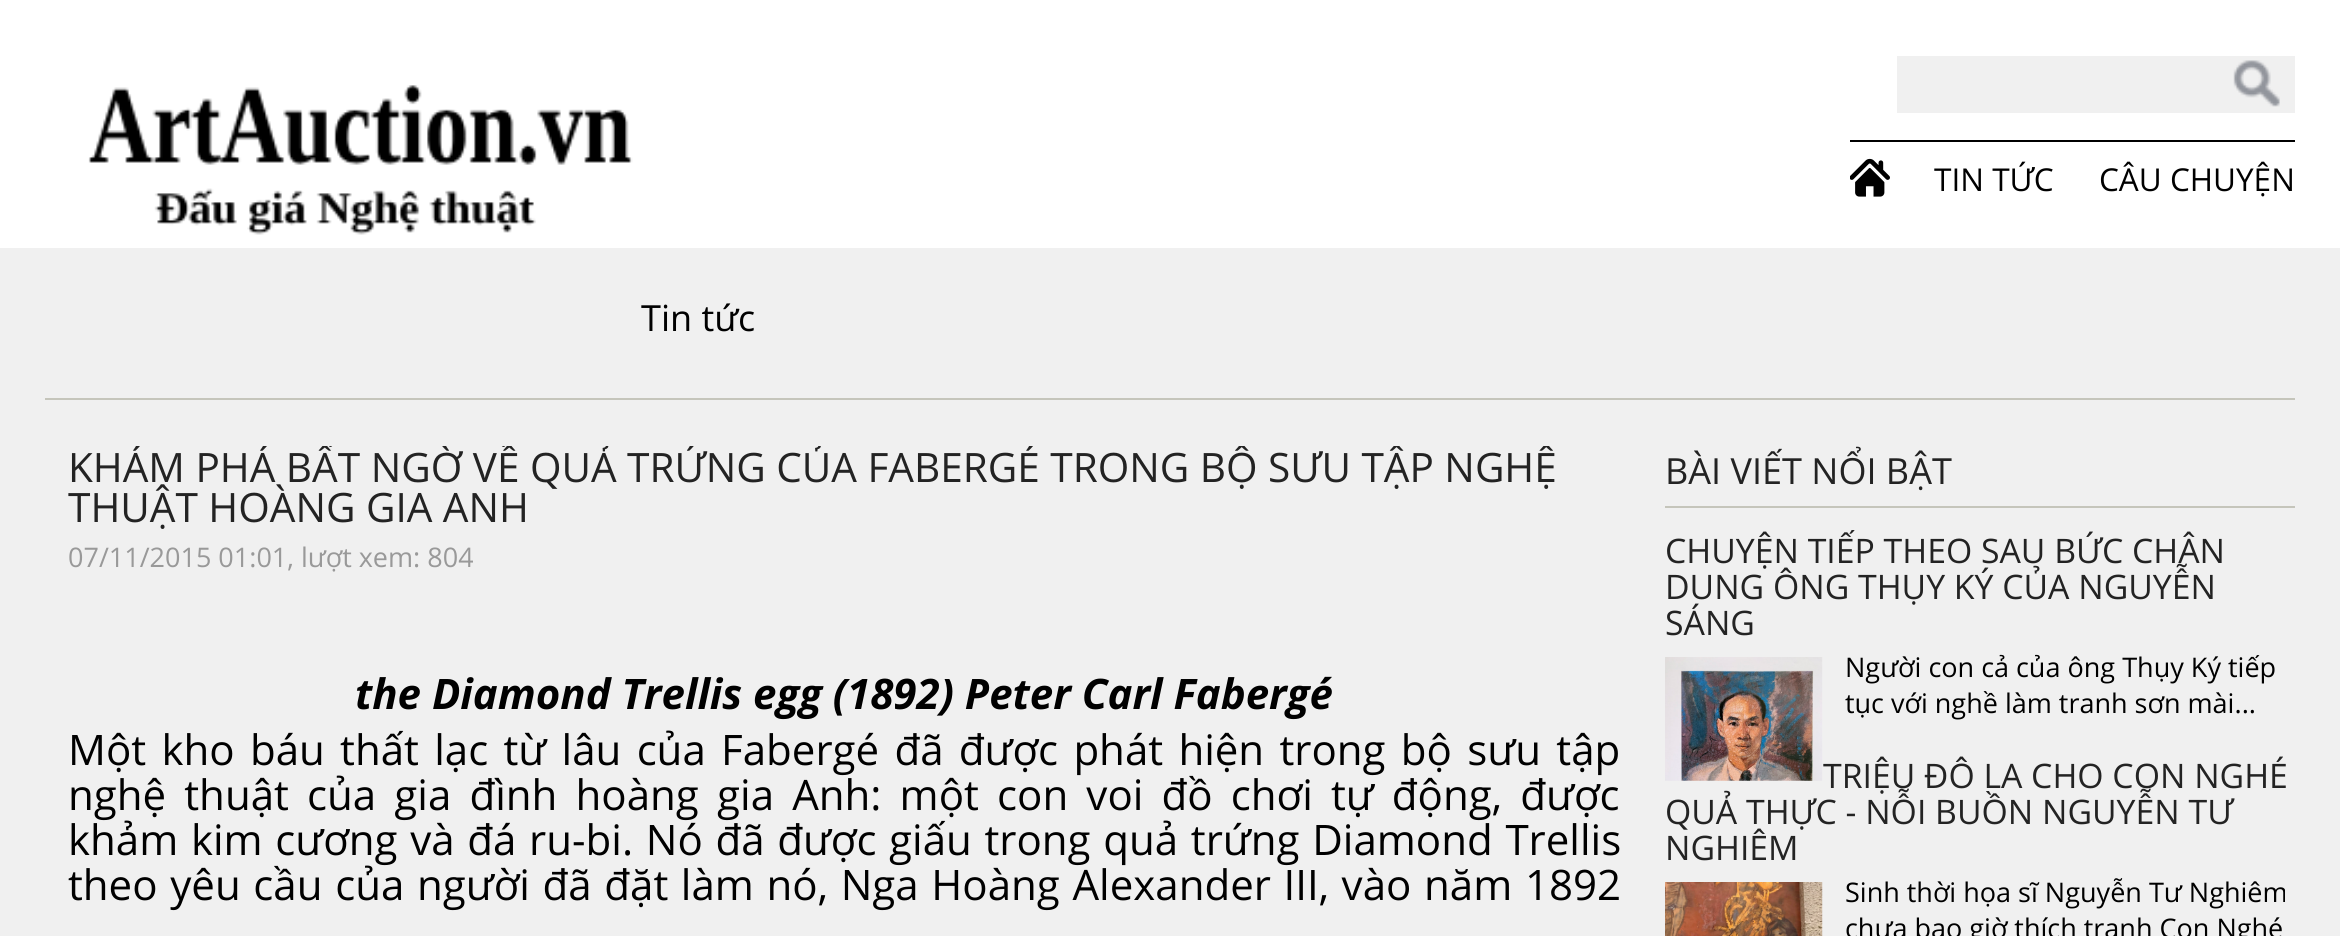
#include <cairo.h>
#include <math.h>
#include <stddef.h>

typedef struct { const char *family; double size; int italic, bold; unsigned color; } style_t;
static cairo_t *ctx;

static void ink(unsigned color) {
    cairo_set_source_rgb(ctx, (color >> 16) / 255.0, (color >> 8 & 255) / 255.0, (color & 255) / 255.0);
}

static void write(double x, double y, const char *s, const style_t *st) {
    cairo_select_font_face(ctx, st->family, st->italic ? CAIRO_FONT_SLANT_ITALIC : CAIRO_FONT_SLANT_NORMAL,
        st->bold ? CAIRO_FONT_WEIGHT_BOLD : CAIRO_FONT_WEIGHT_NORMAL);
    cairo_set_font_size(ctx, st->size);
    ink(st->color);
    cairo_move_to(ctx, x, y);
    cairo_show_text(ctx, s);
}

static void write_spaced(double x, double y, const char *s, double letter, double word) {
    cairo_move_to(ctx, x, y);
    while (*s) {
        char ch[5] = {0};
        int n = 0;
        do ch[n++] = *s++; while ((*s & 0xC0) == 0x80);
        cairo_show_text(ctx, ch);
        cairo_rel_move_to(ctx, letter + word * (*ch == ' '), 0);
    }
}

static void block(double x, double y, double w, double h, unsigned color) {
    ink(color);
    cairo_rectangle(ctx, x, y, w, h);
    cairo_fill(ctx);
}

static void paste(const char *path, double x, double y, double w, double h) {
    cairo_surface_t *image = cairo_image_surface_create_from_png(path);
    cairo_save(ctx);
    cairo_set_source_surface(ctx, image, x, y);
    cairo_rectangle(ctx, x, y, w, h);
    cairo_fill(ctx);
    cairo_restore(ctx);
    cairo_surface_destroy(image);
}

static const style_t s1 = {"Open Sans", 31.5, 0, 0, 0x000000};
static const style_t s2 = {"Open Sans", 36, 0, 0, 0x000000};
static const style_t s3 = {"Open Sans", 40.5, 0, 0, 0x232323};
static const style_t s4 = {"Open Sans", 27, 0, 0, 0x999999};
static const style_t s5 = {"Open Sans", 42, 1, 1, 0x000000};
static const style_t s6 = {"Open Sans", 36, 0, 0, 0x232323};
static const style_t s7 = {"Open Sans", 33.75, 0, 0, 0x232323};
static const style_t s8 = {"Open Sans", 27, 0, 0, 0x000000};

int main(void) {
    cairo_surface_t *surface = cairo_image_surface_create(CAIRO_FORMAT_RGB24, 2340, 936);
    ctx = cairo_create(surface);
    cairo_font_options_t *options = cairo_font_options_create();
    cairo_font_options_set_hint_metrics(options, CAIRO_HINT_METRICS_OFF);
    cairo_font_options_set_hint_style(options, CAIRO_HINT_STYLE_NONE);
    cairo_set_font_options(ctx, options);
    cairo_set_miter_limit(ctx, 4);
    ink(0xffffff);
    cairo_paint(ctx);
    paste("pic1.png", 88, 85, 545, 150);
    block(1897, 56, 398, 57, 0xf0f0f0);
    paste("pic2.png", 2233, 60, 47, 47);
    block(1850, 140, 445, 2, 0x000000);
    paste("pic3.png", 1850, 158, 40, 39);
    write(1934, 191, "TIN TỨC", &s1);
    write(2099, 191, "CÂU CHUYỆN", &s1);
    block(0, 248, 2340, 688, 0xf0f0f0);
    block(45, 398, 2250, 2, 0xc5c5bb);
    write(641, 331, "Tin tức", &s2);
    cairo_save(ctx);
    cairo_rectangle(ctx, 45, 446, 2250, 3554);
    cairo_clip(ctx);
    write(68, 482, "KHÁM PHÁ BẤT NGỜ VỀ QUẢ TRỨNG CỦA FABERGÉ TRONG BỘ SƯU TẬP NGHỆ", &s3);
    cairo_restore(ctx);
    write(68, 522, "THUẬT HOÀNG GIA ANH", &s3);
    write(68, 567, "07/11/2015 01:01, lượt xem: 804", &s4);
    write(355, 709, "the Diamond Trellis egg (1892) Peter Carl Fabergé", &s5);
    cairo_select_font_face(ctx, "Open Sans", CAIRO_FONT_SLANT_NORMAL, CAIRO_FONT_WEIGHT_NORMAL);
    write_spaced(68, 765, "Một kho báu thất lạc từ lâu của Fabergé đã được phát hiện trong bộ sưu tập", 0, 4.4);
    write_spaced(68, 810, "nghệ thuật của gia đình hoàng gia Anh: một con voi đồ chơi tự động, được", 0, 7.25);
    write_spaced(68, 855, "khảm kim cương và đá ru-bi. Nó đã được giấu trong quả trứng Diamond Trellis", 0, 1.75);
    write_spaced(68, 900, "theo yêu cầu của người đã đặt làm nó, Nga Hoàng Alexander III, vào năm 1892", 0, 1.75);
    block(1665, 506, 630, 2, 0xc5c5bb);
    write(1665, 484, "BÀI VIẾT NỔI BẬT", &s6);
    write(1665, 563, "CHUYỆN TIẾP THEO SAU BỨC CHÂN", &s7);
    write(1665, 599, "DUNG ÔNG THỤY KÝ CỦA NGUYỄN", &s7);
    write(1665, 635, "SÁNG", &s7);
    write(1823, 788, "TRIỆU ĐÔ LA CHO CON NGHÉ", &s7);
    paste("pic4.png", 1665, 657, 158, 124);
    write(1845, 677, "Người con cả của ông Thụy Ký tiếp", &s8);
    write(1845, 713, "tục với nghề làm tranh sơn mài...", &s8);
    write(1665, 824, "QUẢ THỰC - NỖI BUỒN NGUYỄN TƯ", &s7);
    write(1665, 860, "NGHIÊM", &s7);
    paste("pic5.png", 1665, 882, 158, 54);
    write(1845, 902, "Sinh thời họa sĩ Nguyễn Tư Nghiêm", &s8);
    write(1845, 938, "chưa bao giờ thích tranh Con Nghé", &s8);
    cairo_surface_write_to_png(surface, "screenshot.png");
    cairo_font_options_destroy(options);
    cairo_destroy(ctx);
    cairo_surface_destroy(surface);
    return 0;
}
